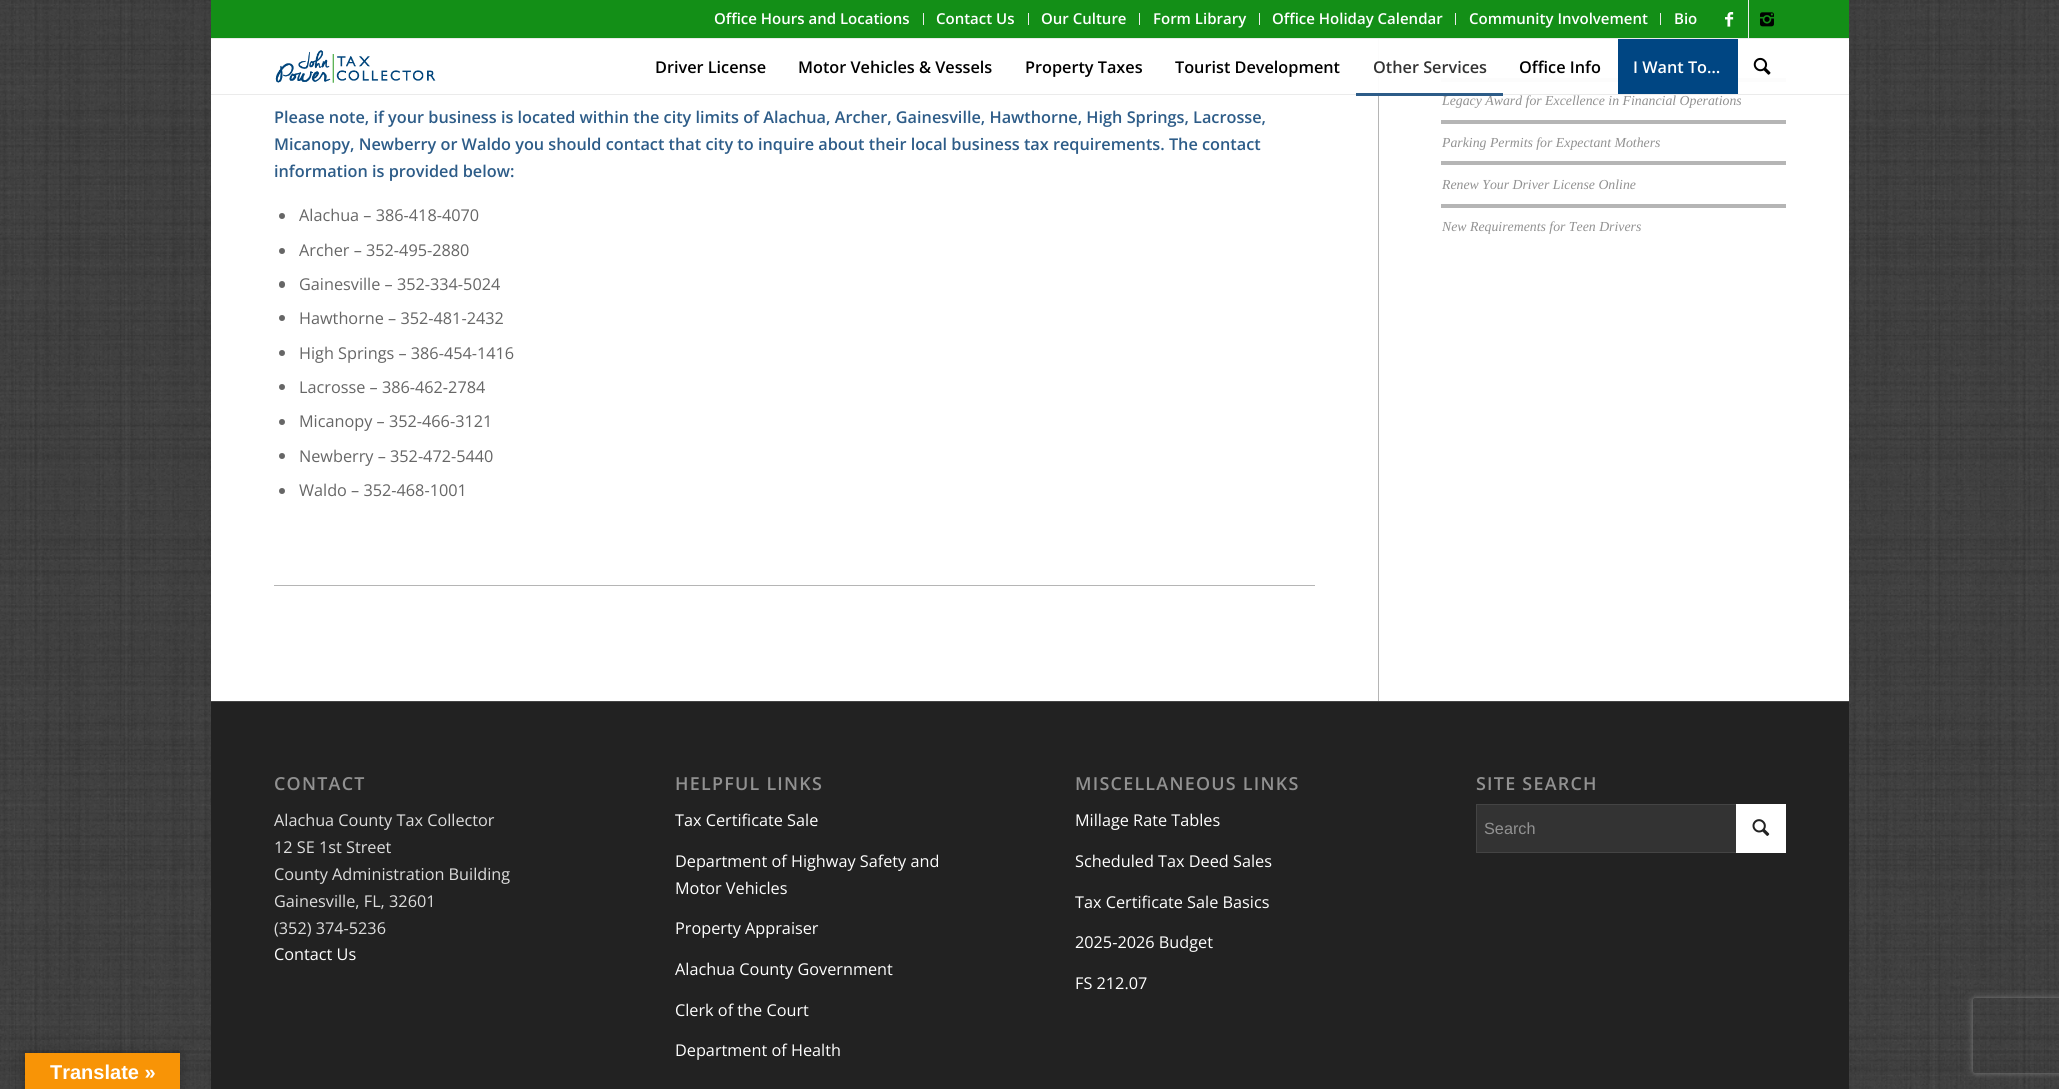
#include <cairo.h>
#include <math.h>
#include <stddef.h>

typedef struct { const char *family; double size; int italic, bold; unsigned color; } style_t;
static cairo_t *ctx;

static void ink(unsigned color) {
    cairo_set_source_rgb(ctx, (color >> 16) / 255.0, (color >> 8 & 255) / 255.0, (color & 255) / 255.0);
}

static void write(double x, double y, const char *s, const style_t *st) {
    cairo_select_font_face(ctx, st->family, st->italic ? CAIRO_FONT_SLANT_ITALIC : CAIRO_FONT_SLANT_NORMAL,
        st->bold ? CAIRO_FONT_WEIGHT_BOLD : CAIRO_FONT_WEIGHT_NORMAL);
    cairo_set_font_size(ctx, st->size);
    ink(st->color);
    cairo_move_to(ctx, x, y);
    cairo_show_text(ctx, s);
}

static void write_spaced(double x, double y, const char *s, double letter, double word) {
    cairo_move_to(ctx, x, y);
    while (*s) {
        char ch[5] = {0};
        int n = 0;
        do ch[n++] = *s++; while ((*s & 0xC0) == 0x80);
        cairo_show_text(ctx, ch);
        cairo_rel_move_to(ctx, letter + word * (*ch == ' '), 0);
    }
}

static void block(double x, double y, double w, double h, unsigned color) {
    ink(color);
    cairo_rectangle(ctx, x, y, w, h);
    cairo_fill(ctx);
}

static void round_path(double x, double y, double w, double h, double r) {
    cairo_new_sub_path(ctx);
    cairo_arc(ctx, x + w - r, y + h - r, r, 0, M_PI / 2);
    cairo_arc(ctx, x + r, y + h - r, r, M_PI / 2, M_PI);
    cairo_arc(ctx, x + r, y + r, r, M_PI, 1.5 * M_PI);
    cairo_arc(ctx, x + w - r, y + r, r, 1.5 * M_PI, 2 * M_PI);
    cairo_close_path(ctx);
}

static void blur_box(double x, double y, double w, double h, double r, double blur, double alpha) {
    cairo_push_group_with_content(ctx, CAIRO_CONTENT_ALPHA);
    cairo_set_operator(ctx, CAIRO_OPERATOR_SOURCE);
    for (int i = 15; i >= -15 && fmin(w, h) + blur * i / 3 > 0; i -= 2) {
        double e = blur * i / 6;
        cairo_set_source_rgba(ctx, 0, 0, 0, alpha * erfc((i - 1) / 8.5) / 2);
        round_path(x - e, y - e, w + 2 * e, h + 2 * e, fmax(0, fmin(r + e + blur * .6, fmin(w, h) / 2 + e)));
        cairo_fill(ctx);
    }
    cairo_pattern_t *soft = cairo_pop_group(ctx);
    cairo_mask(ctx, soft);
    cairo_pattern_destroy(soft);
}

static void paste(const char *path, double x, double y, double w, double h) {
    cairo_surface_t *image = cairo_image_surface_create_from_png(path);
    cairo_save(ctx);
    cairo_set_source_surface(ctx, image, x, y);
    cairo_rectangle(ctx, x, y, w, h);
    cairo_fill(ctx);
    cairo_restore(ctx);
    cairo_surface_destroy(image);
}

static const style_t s1 = {"Liberation Sans", 20, 0, 1, 0xffffff};
static const style_t s2 = {"Open Sans SemiBold", 15, 0, 0, 0xffffff};
static const style_t s3 = {"Open Sans SemiBold", 16.25, 0, 0, 0x000000};
static const style_t s4 = {"Open Sans SemiBold", 16.25, 0, 0, 0x333333};
static const style_t s5 = {"Liberation Serif", 13.8, 1, 0, 0x919191};
static const style_t s6 = {"Open Sans SemiBold", 16.25, 0, 0, 0xffffff};
static const style_t s7 = {"Open Sans SemiBold", 16.25, 0, 0, 0x2d5c88};
static const style_t s8 = {"Open Sans", 16.25, 0, 0, 0x666666};
static const style_t s9 = {"Open Sans", 16.25, 0, 0, 0xdddddd};
static const style_t s10 = {"Open Sans", 16.25, 0, 0, 0xffffff};
static const style_t s11 = {"Liberation Sans", 16.25, 0, 0, 0x919191};

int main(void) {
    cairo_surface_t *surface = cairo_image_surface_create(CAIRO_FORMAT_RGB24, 2059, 1089);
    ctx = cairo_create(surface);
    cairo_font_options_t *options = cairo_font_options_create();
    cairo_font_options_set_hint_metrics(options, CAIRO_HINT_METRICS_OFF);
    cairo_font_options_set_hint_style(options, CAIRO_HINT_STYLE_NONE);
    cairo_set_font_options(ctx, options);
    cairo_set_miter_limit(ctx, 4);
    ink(0x333333);
    cairo_paint(ctx);
    paste("pic1.png", 0, 0, 2059, 1089);
    ink(0x000000);
    blur_box(25, 1053, 155, 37, 0, 5.5, 0.3);
    block(25, 1053, 155, 36, 0xf89406);
    write(50, 1079, "Translate »", &s1);
    block(211, 0, 1638, 38, 0x138f17);
    block(211, 38, 1638, 1, 0xebebeb);
    block(923, 13, 1, 12, 0xebebeb);
    write(714, 24, "Office Hours and Locations", &s2);
    block(1028, 13, 1, 12, 0xebebeb);
    write(936, 24, "Contact Us", &s2);
    block(1139, 13, 1, 12, 0xebebeb);
    write(1041, 24, "Our Culture", &s2);
    block(1259, 13, 1, 12, 0xebebeb);
    write(1153, 24, "Form Library", &s2);
    block(1455, 13, 1, 12, 0xebebeb);
    write(1272, 24, "Office Holiday Calendar", &s2);
    block(1660, 13, 1, 12, 0xebebeb);
    write(1469, 24, "Community Involvement", &s2);
    write(1674, 24, "Bio", &s2);
    block(1748, 0, 1, 38, 0xebebeb);
    paste("pic2.png", 1725, 12, 9, 15);
    paste("pic3.png", 1760, 12, 14, 15);
    block(211, 39, 1638, 662, 0xffffff);
    block(1378, 39, 1, 662, 0xb5b5b5);
    block(1441, 78, 345, 4, 0xb5b5b5);
    cairo_set_source_rgba(ctx, 1, 1, 1, 0.95);
    cairo_rectangle(ctx, 1378, 39, 408, 55);
    cairo_fill(ctx);
    block(211, 94, 1638, 1, 0xebebeb);
    paste("pic4.png", 275, 50, 161, 33);
    write(655, 73, "Driver License", &s3);
    write(798, 73, "Motor Vehicles & Vessels", &s3);
    write(1025, 73, "Property Taxes", &s3);
    write(1175, 73, "Tourist Development", &s3);
    write(1373, 73, "Other Services", &s4);
    write(1442, 105, "Legacy Award for Excellence in Financial Operations", &s5);
    block(1356, 93, 147, 3, 0x2d5c88);
    write(1519, 73, "Office Info", &s3);
    block(1618, 39, 120, 55, 0x004683);
    write(1633, 73, "I Want To…", &s6);
    paste("pic5.png", 1753, 57, 18, 18);
    write(274, 123, "Please note, if your business is located within the city limits of Alachua, Archer, Gainesville, Hawthorne, High Springs, Lacrosse,", &s7);
    write(274, 150, "Micanopy, Newberry or Waldo you should contact that city to inquire about their local business tax requirements. The contact", &s7);
    write(274, 177, "information is provided below:", &s7);
    ink(0x666666);
    cairo_new_path(ctx);
    cairo_arc(ctx, 282, 216, 3, 0, 2 * M_PI);
    cairo_fill(ctx);
    write(299, 221, "Alachua – 386-418-4070", &s8);
    cairo_new_path(ctx);
    cairo_arc(ctx, 282, 251, 3, 0, 2 * M_PI);
    cairo_fill(ctx);
    write(299, 256, "Archer – 352-495-2880", &s8);
    round_path(279, 281, 6, 7, 3);
    cairo_fill(ctx);
    write(299, 290, "Gainesville – 352-334-5024", &s8);
    cairo_new_path(ctx);
    cairo_arc(ctx, 282, 318, 3, 0, 2 * M_PI);
    cairo_fill(ctx);
    write(299, 324, "Hawthorne – 352-481-2432", &s8);
    cairo_new_path(ctx);
    cairo_arc(ctx, 282, 353, 3, 0, 2 * M_PI);
    cairo_fill(ctx);
    write(299, 359, "High Springs – 386-454-1416", &s8);
    cairo_new_path(ctx);
    cairo_arc(ctx, 282, 387, 3, 0, 2 * M_PI);
    cairo_fill(ctx);
    write(299, 393, "Lacrosse – 386-462-2784", &s8);
    cairo_new_path(ctx);
    cairo_arc(ctx, 282, 422, 3, 0, 2 * M_PI);
    cairo_fill(ctx);
    write(299, 427, "Micanopy – 352-466-3121", &s8);
    cairo_new_path(ctx);
    cairo_arc(ctx, 282, 456, 3, 0, 2 * M_PI);
    cairo_fill(ctx);
    write(299, 462, "Newberry – 352-472-5440", &s8);
    cairo_new_path(ctx);
    cairo_arc(ctx, 282, 491, 3, 0, 2 * M_PI);
    cairo_fill(ctx);
    write(299, 496, "Waldo – 352-468-1001", &s8);
    block(274, 585, 1041, 1, 0xb5b5b5);
    block(1441, 120, 345, 4, 0xb5b5b5);
    write(1442, 147, "Parking Permits for Expectant Mothers", &s5);
    block(1441, 161, 345, 4, 0xb5b5b5);
    write(1442, 189, "Renew Your Driver License Online", &s5);
    block(1441, 204, 345, 4, 0xb5b5b5);
    write(1442, 231, "New Requirements for Teen Drivers", &s5);
    block(211, 702, 1638, 387, 0x222222);
    block(211, 701, 1638, 1, 0x444444);
    cairo_select_font_face(ctx, "Open Sans SemiBold", CAIRO_FONT_SLANT_NORMAL, CAIRO_FONT_WEIGHT_NORMAL);
    cairo_set_font_size(ctx, 17.9);
    ink(0x919191);
    write_spaced(274, 790, "CONTACT", 1.25, 0);
    write(274, 826, "Alachua County Tax Collector", &s9);
    write(274, 853, "12 SE 1st Street", &s9);
    write(274, 880, "County Administration Building", &s9);
    write(274, 907, "Gainesville, FL, 32601", &s9);
    write(274, 934, "(352) 374-5236", &s9);
    write(274, 960, "Contact Us", &s10);
    cairo_select_font_face(ctx, "Open Sans SemiBold", CAIRO_FONT_SLANT_NORMAL, CAIRO_FONT_WEIGHT_NORMAL);
    cairo_set_font_size(ctx, 17.9);
    ink(0x919191);
    write_spaced(675, 790, "HELPFUL LINKS", 1.25, 0);
    write(675, 826, "Tax Certificate Sale", &s10);
    write(675, 867, "Department of Highway Safety and", &s10);
    write(675, 894, "Motor Vehicles", &s10);
    write(675, 934, "Property Appraiser", &s10);
    write(675, 975, "Alachua County Government", &s10);
    write(675, 1016, "Clerk of the Court", &s10);
    write(675, 1056, "Department of Health", &s10);
    cairo_select_font_face(ctx, "Open Sans SemiBold", CAIRO_FONT_SLANT_NORMAL, CAIRO_FONT_WEIGHT_NORMAL);
    cairo_set_font_size(ctx, 17.9);
    ink(0x919191);
    write_spaced(1075, 790, "MISCELLANEOUS LINKS", 1.25, 0);
    write(1075, 826, "Millage Rate Tables", &s10);
    write(1075, 867, "Scheduled Tax Deed Sales", &s10);
    write(1075, 908, "Tax Certificate Sale Basics", &s10);
    write(1075, 948, "2025-2026 Budget", &s10);
    write(1075, 989, "FS 212.07", &s10);
    cairo_select_font_face(ctx, "Open Sans SemiBold", CAIRO_FONT_SLANT_NORMAL, CAIRO_FONT_WEIGHT_NORMAL);
    cairo_set_font_size(ctx, 17.9);
    ink(0x919191);
    write_spaced(1476, 790, "SITE SEARCH", 1.25, 0);
    block(1477, 805, 259, 47, 0x333333);
    cairo_rectangle(ctx, 1476.5, 804.5, 309, 48);
    ink(0x444444);
    cairo_set_line_width(ctx, 1);
    cairo_stroke(ctx);
    write(1484, 834, "Search", &s11);
    block(1736, 804, 50, 49, 0xffffff);
    paste("pic6.png", 1752, 819, 18, 17);
    cairo_save(ctx);
    cairo_set_fill_rule(ctx, CAIRO_FILL_RULE_EVEN_ODD);
    cairo_new_path(ctx);
    cairo_move_to(ctx, 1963, 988);
    cairo_line_to(ctx, 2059, 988);
    cairo_line_to(ctx, 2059, 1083);
    cairo_line_to(ctx, 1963, 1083);
    cairo_close_path(ctx);
    cairo_move_to(ctx, 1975.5, 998);
    cairo_line_to(ctx, 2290.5, 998);
    cairo_curve_to(ctx, 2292, 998, 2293, 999, 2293, 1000.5);
    cairo_line_to(ctx, 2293, 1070.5);
    cairo_curve_to(ctx, 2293, 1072, 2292, 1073, 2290.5, 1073);
    cairo_line_to(ctx, 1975.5, 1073);
    cairo_curve_to(ctx, 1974, 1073, 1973, 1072, 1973, 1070.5);
    cairo_line_to(ctx, 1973, 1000.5);
    cairo_curve_to(ctx, 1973, 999, 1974, 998, 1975.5, 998);
    cairo_close_path(ctx);
    cairo_clip(ctx);
    ink(0x808080);
    blur_box(1973, 998, 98, 75, 2.5, 3, 1);
    cairo_restore(ctx);
    cairo_surface_write_to_png(surface, "screenshot.png");
    cairo_font_options_destroy(options);
    cairo_destroy(ctx);
    cairo_surface_destroy(surface);
    return 0;
}
